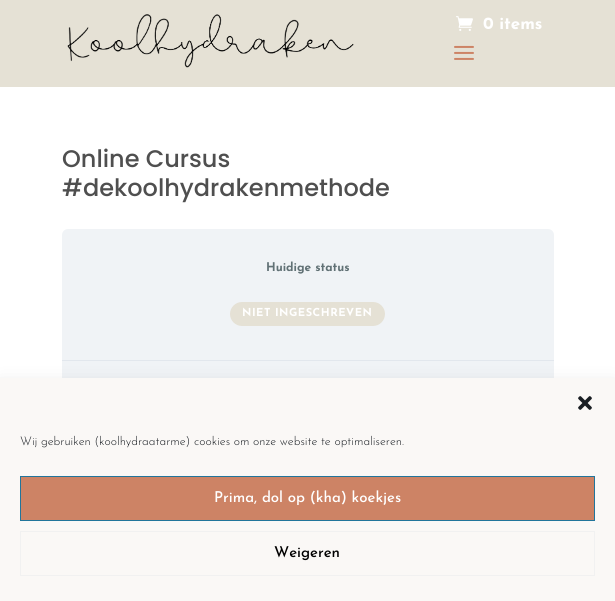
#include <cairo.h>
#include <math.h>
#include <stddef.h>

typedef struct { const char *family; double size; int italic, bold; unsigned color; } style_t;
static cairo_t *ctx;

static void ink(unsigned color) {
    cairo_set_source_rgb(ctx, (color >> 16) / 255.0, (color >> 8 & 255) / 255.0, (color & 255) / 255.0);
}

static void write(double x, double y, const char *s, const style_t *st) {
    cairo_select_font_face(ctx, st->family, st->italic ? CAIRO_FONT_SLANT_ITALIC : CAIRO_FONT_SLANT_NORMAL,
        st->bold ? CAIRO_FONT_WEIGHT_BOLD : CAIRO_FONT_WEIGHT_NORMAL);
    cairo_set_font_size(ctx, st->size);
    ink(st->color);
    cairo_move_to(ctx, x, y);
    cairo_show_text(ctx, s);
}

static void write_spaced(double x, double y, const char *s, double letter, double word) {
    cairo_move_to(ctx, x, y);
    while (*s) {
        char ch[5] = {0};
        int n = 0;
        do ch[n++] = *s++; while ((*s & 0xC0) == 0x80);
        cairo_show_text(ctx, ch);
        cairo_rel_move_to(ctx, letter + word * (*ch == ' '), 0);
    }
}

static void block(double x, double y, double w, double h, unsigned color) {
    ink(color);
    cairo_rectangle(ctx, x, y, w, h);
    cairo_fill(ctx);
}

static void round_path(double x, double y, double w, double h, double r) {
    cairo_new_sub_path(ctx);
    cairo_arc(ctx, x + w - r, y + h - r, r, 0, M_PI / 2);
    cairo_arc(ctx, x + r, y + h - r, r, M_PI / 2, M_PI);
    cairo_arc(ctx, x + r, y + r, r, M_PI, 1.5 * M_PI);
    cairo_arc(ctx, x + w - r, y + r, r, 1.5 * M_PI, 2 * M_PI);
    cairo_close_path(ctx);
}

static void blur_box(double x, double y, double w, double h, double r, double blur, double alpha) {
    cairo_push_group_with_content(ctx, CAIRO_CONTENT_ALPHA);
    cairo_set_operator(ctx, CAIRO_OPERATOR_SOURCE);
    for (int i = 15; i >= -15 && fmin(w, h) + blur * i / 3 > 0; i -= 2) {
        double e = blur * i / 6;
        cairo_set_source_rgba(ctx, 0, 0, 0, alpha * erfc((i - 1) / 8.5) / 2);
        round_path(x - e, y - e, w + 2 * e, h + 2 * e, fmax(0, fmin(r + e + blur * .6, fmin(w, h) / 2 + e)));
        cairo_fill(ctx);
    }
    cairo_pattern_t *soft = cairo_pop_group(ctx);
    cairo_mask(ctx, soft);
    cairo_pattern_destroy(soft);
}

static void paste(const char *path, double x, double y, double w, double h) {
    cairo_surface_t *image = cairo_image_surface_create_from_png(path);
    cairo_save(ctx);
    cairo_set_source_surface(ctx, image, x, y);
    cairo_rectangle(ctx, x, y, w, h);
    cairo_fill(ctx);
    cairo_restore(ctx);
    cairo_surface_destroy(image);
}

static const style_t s1 = {"Josefin Sans Thin", 17, 0, 0, 0xffffff};
static const style_t s2 = {"Poppins Medium", 24, 0, 0, 0x4f4f4f};
static const style_t s3 = {"Josefin Sans Thin", 12, 0, 0, 0x617175};
static const style_t s4 = {"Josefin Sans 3 Thin", 12, 0, 0, 0x191e23};
static const style_t s5 = {"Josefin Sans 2 Thin", 15, 0, 0, 0xffffff};
static const style_t s6 = {"Josefin Sans 2 Thin", 15, 0, 0, 0x000000};

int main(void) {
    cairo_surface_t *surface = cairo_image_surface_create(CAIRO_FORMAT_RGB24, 615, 601);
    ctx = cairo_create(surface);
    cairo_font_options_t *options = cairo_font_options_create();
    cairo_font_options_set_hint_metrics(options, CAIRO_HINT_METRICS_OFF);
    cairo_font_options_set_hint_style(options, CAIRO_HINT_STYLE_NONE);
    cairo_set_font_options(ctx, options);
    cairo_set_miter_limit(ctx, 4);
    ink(0xffffff);
    cairo_paint(ctx);
    block(0, 0, 615, 87, 0xe5e1d5);
    paste("pic1.png", 67, 14, 287, 54);
    paste("pic2.png", 456, 16, 17, 15);
    write(483, 29, "0 items", &s1);
    paste("pic3.png", 454, 45, 20, 15);
    write(62, 167, "Online Cursus", &s2);
    write(62, 196, "#dekoolhydrakenmethode", &s2);
    ink(0xf0f3f6);
    round_path(62, 229, 492, 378, 6);
    cairo_fill(ctx);
    block(62, 360, 492, 1, 0xe2e7ed);
    write(266, 271, "Huidige status", &s3);
    ink(0xe5e1d5);
    round_path(230, 302, 155, 24, 12);
    cairo_fill(ctx);
    cairo_set_font_size(ctx, 11);
    ink(0xffffff);
    write_spaced(242, 316, "NIET INGESCHREVEN", 0.5, 0);
    ink(0x000000);
    blur_box(0, 388, 615, 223, 0, 10, 0.19);
    block(0, 378, 615, 223, 0xfaf8f6);
    paste("pic4.png", 578, 396, 14, 14);
    write(20, 445, "Wij gebruiken (koolhydraatarme) cookies om onze website te optimaliseren.", &s4);
    ink(0xcd8365);
    cairo_rectangle(ctx, 20.5, 476.5, 574, 44);
    cairo_fill_preserve(ctx);
    ink(0x21759b);
    cairo_set_line_width(ctx, 1);
    cairo_stroke(ctx);
    write(214, 502, "Prima, dol op (kha) koekjes", &s5);
    cairo_rectangle(ctx, 20.5, 531.5, 574, 44);
    ink(0xf1f1f1);
    cairo_stroke(ctx);
    write(274, 557, "Weigeren", &s6);
    cairo_surface_write_to_png(surface, "screenshot.png");
    cairo_font_options_destroy(options);
    cairo_destroy(ctx);
    cairo_surface_destroy(surface);
    return 0;
}
